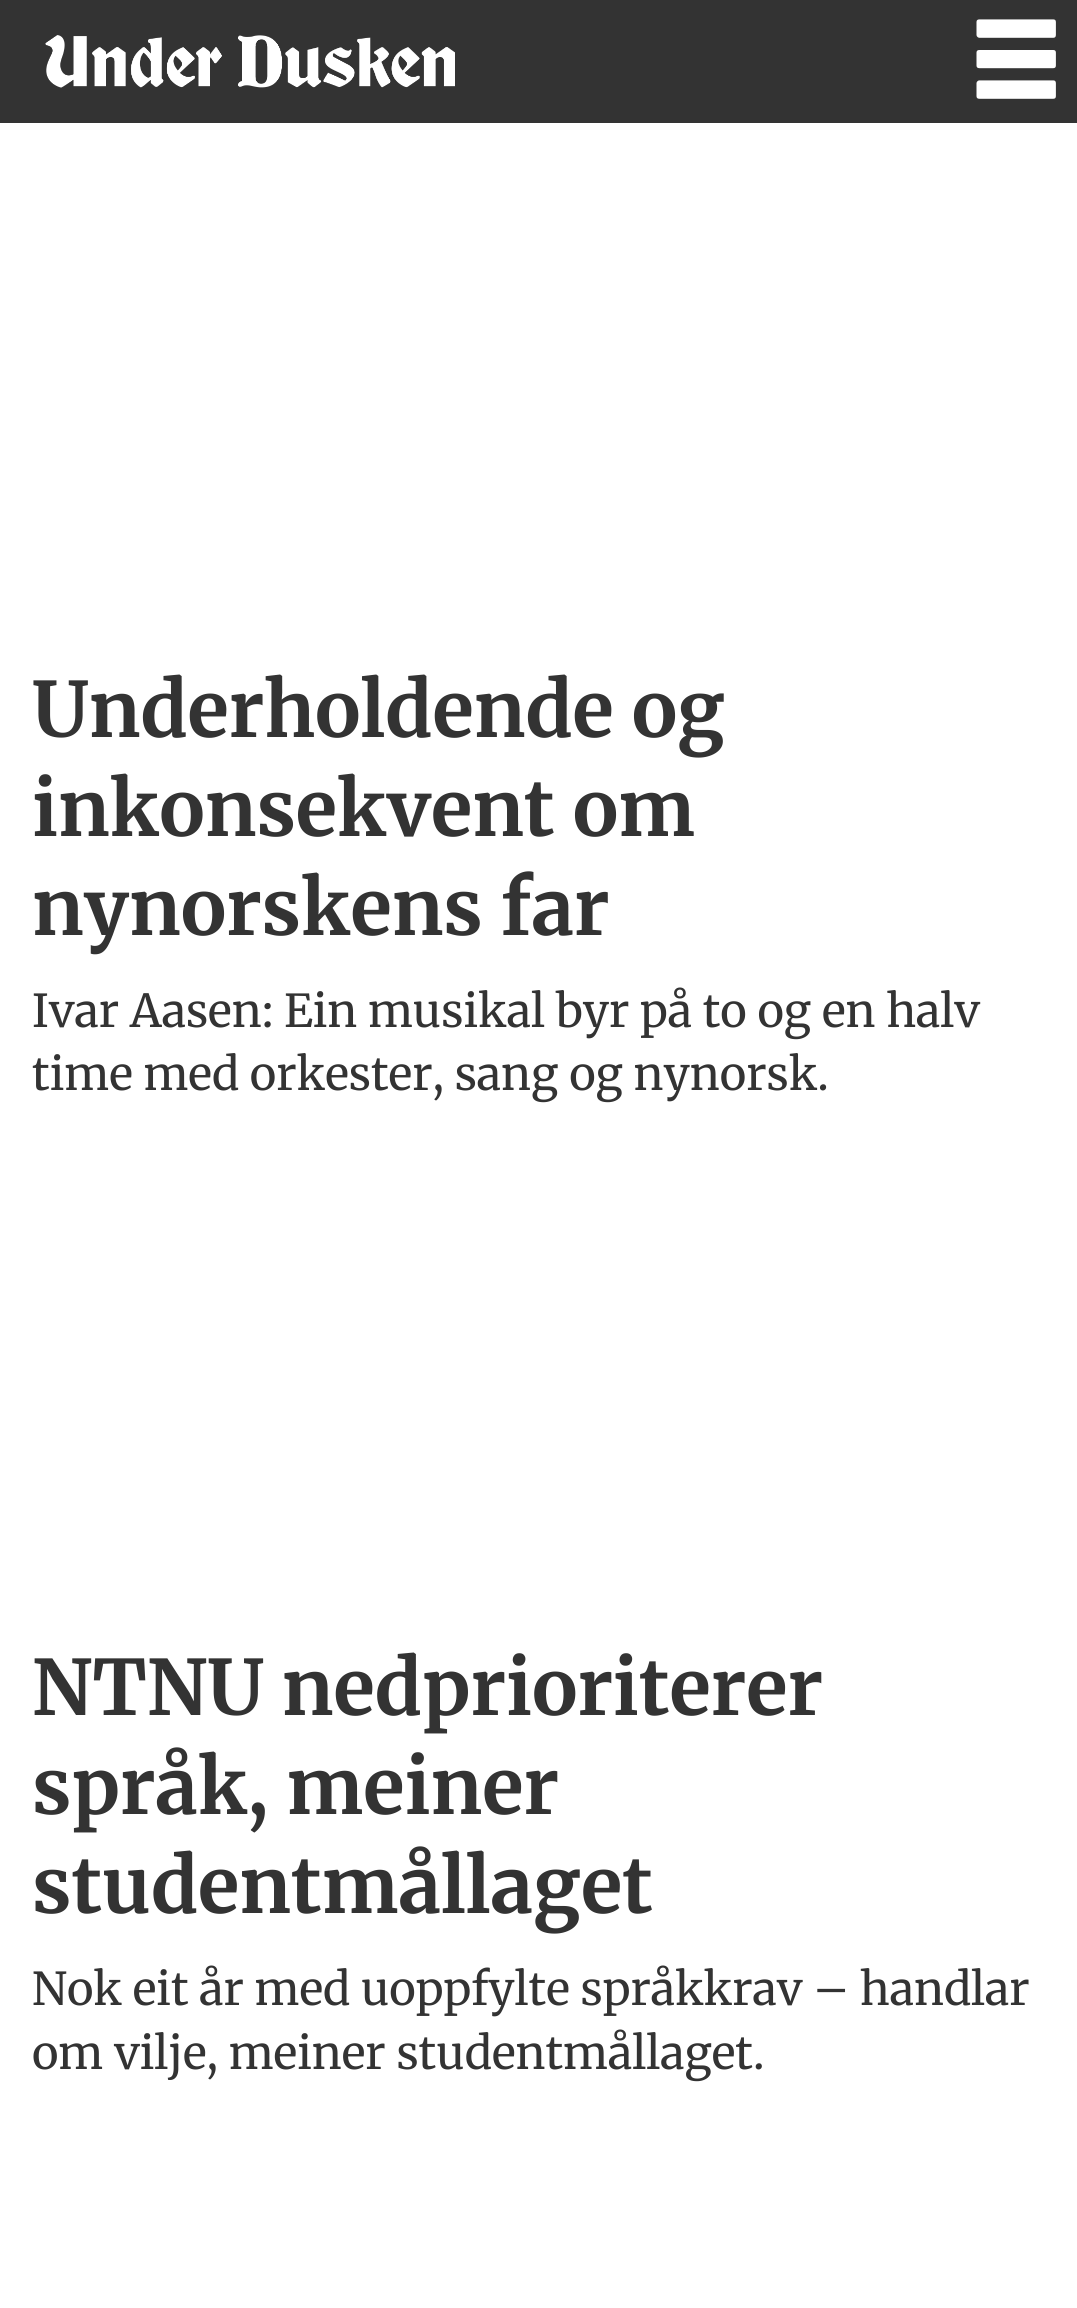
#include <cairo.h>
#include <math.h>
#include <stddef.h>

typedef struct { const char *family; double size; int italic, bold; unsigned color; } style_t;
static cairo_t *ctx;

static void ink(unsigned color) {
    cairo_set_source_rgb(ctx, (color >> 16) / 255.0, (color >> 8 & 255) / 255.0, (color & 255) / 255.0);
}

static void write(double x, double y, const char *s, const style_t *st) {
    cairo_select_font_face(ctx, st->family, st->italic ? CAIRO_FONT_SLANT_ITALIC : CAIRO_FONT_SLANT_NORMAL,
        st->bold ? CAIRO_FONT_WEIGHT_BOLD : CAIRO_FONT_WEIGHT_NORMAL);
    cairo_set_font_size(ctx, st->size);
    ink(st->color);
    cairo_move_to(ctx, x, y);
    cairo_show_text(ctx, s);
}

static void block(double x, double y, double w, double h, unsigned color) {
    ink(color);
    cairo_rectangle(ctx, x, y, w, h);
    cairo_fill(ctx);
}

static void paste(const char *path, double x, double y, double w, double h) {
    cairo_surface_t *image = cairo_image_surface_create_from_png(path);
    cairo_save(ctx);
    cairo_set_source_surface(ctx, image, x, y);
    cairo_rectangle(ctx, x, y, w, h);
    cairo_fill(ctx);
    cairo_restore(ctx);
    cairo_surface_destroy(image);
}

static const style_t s1 = {"Merriweather", 76.25, 0, 1, 0x333333};
static const style_t s2 = {"Merriweather", 45.2, 0, 0, 0x333333};

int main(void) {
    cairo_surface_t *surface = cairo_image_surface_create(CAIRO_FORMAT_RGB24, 1077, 2308);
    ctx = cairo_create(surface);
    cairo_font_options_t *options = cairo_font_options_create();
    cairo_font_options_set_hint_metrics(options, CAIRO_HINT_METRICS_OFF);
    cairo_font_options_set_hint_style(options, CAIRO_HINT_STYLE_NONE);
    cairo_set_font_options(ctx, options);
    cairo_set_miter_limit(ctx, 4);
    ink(0xffffff);
    cairo_paint(ctx);
    block(0, 0, 1077, 123, 0x333333);
    paste("pic1.png", 45, 35, 410, 53);
    paste("pic2.png", 976, 19, 80, 80);
    write(32, 737, "Underholdende og", &s1);
    write(32, 836, "inkonsekvent om", &s1);
    write(32, 935, "nynorskens far", &s1);
    write(32, 1027, "Ivar Aasen: Ein musikal byr på to og en halv", &s2);
    write(32, 1090, "time med orkester, sang og nynorsk.", &s2);
    write(32, 1715, "NTNU nedprioriterer", &s1);
    write(32, 1814, "språk, meiner", &s1);
    write(32, 1913, "studentmållaget", &s1);
    write(32, 2005, "Nok eit år med uoppfylte språkkrav – handlar", &s2);
    write(32, 2069, "om vilje, meiner studentmållaget.", &s2);
    cairo_surface_write_to_png(surface, "screenshot.png");
    cairo_font_options_destroy(options);
    cairo_destroy(ctx);
    cairo_surface_destroy(surface);
    return 0;
}
